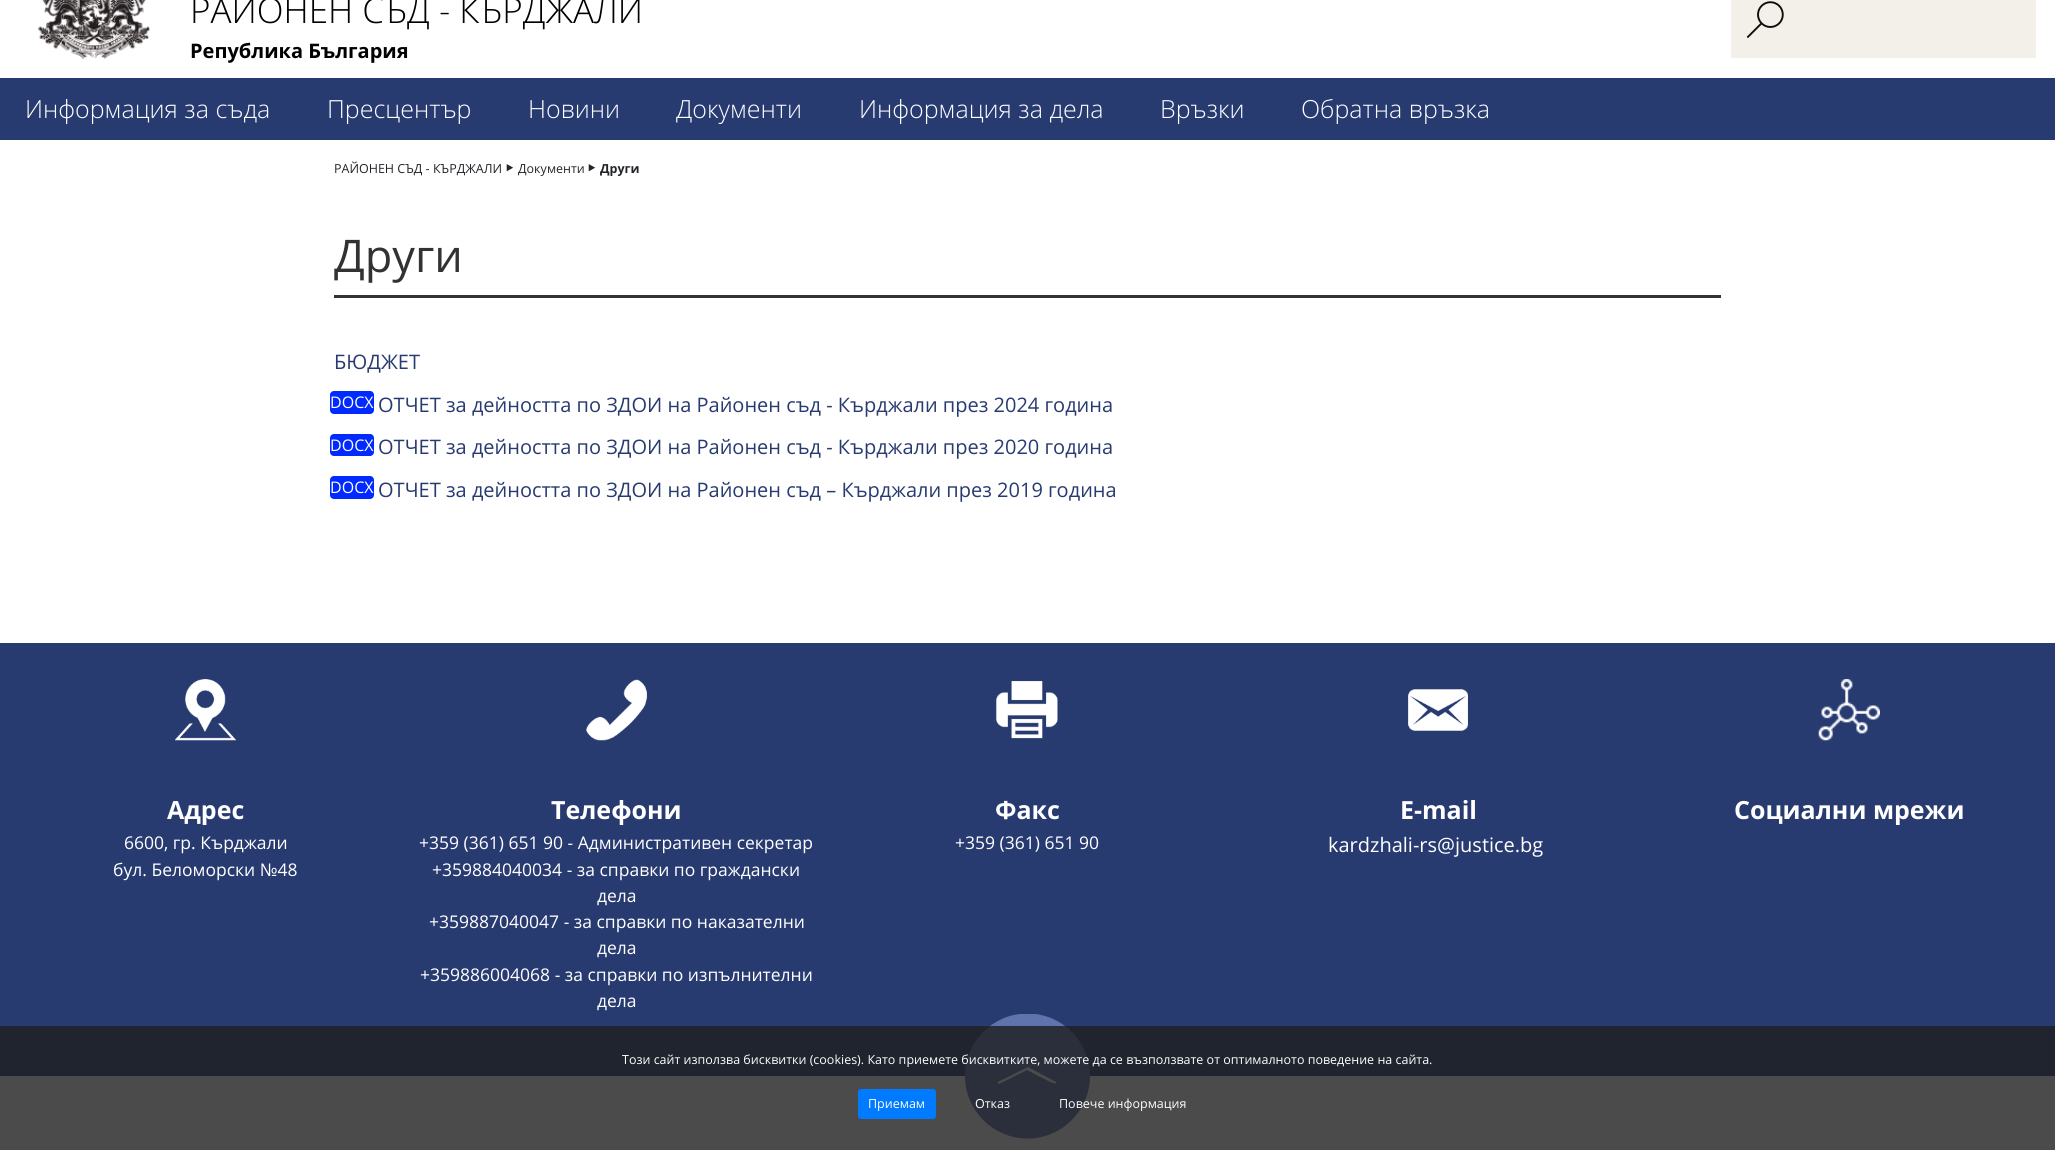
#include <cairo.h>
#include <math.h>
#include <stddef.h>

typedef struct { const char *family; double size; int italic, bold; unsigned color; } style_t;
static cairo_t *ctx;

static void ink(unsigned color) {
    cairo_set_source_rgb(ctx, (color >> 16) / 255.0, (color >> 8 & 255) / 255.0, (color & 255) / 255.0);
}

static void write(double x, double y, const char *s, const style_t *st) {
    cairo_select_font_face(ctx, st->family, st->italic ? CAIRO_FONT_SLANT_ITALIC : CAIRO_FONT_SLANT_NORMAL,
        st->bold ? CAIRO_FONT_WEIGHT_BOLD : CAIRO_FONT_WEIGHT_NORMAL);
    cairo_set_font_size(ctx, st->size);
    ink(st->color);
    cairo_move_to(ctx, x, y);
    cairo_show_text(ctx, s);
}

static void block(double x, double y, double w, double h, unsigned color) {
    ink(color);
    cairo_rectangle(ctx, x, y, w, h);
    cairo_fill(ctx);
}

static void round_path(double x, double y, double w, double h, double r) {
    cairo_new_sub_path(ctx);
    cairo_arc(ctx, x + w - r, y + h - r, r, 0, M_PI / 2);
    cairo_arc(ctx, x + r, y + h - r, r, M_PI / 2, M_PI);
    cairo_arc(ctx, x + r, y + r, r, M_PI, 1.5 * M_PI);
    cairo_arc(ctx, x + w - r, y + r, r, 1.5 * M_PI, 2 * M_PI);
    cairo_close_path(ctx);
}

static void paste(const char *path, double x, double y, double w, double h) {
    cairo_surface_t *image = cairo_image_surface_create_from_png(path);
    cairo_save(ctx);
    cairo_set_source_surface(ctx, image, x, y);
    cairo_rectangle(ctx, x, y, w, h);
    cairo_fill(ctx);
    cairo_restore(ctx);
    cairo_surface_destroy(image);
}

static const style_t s1 = {"Open Sans Light", 35, 0, 0, 0x000000};
static const style_t s2 = {"Open Sans", 20, 0, 1, 0x000000};
static const style_t s3 = {"Open Sans Light", 25, 0, 0, 0xffffff};
static const style_t s4 = {"Open Sans", 12.5, 0, 0, 0x212529};
static const style_t s5 = {"Noto Sans", 25, 0, 0, 0x212529};
static const style_t s6 = {"Open Sans", 12.5, 0, 1, 0x212529};
static const style_t s7 = {"Open Sans", 45, 0, 0, 0x323232};
static const style_t s8 = {"Open Sans", 20, 0, 0, 0x283b71};
static const style_t s9 = {"Open Sans", 16, 0, 0, 0xffffff};
static const style_t s10 = {"Open Sans", 25, 0, 1, 0xffffff};
static const style_t s11 = {"Open Sans", 17.5, 0, 0, 0xffffff};
static const style_t s12 = {"Open Sans", 20, 0, 0, 0xffffff};
static const style_t s13 = {"Open Sans", 12.5, 0, 0, 0xffffff};

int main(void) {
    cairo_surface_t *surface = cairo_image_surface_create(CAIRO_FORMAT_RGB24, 2055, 1150);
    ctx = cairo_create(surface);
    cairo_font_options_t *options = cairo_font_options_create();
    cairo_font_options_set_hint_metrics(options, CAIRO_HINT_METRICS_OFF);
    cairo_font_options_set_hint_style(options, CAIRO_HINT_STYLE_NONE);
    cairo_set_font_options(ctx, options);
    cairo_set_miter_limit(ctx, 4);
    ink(0xffffff);
    cairo_paint(ctx);
    paste("pic1.png", 37, 0, 113, 59);
    write(190, 23, "РАЙОНЕН СЪД - КЪРДЖАЛИ", &s1);
    write(190, 58, "Република България", &s2);
    block(1731, 0, 305, 58, 0xf3f0e9);
    paste("pic2.png", 1746, 1, 38, 37);
    block(0, 78, 2055, 62, 0x283b71);
    write(25, 118, "Информация за съда", &s3);
    write(327, 118, "Пресцентър", &s3);
    write(528, 118, "Новини", &s3);
    write(676, 118, "Документи", &s3);
    write(859, 118, "Информация за дела", &s3);
    write(1160, 118, "Връзки", &s3);
    write(1301, 118, "Обратна връзка", &s3);
    write(334, 173, "РАЙОНЕН СЪД - КЪРДЖАЛИ", &s4);
    write(505, 177, "‣", &s5);
    write(518, 173, "Документи", &s4);
    write(587, 177, "‣", &s5);
    write(600, 173, "Други", &s6);
    block(334, 295, 1387, 3, 0x323232);
    write(334, 272, "Други", &s7);
    write(334, 369, "БЮДЖЕТ", &s8);
    ink(0x002aff);
    round_path(330, 391, 44, 23, 4);
    cairo_fill(ctx);
    write(330, 408, "DOCX", &s9);
    write(378, 412, "ОТЧЕТ за дейността по ЗДОИ на Районен съд - Кърджали през 2024 година", &s8);
    ink(0x002aff);
    round_path(330, 434, 44, 22, 4);
    cairo_fill(ctx);
    write(330, 451, "DOCX", &s9);
    write(378, 454, "ОТЧЕТ за дейността по ЗДОИ на Районен съд - Кърджали през 2020 година", &s8);
    ink(0x002aff);
    round_path(330, 476, 44, 23, 4);
    cairo_fill(ctx);
    write(330, 493, "DOCX", &s9);
    write(378, 497, "ОТЧЕТ за дейността по ЗДОИ на Районен съд – Кърджали през 2019 година", &s8);
    block(0, 643, 2055, 433, 0x283b71);
    paste("pic3.png", 175, 679, 62, 62);
    write(167, 819, "Адрес", &s10);
    write(124, 849, "6600, гр. Кърджали", &s11);
    write(113, 876, "бул. Беломорски №48", &s11);
    paste("pic4.png", 586, 679, 61, 62);
    write(551, 819, "Телефони", &s10);
    write(419, 849, "+359 (361) 651 90 - Административен секретар", &s11);
    write(432, 876, "+359884040034 - за справки по граждански", &s11);
    write(597, 902, "дела", &s11);
    write(429, 928, "+359887040047 - за справки по наказателни", &s11);
    write(597, 954, "дела", &s11);
    write(420, 981, "+359886004068 - за справки по изпълнителни", &s11);
    write(597, 1007, "дела", &s11);
    paste("pic5.png", 996, 681, 62, 58);
    write(995, 819, "Факс", &s10);
    write(955, 849, "+359 (361) 651 90", &s11);
    paste("pic6.png", 1408, 689, 60, 42);
    write(1400, 819, "E-mail", &s10);
    write(1328, 852, "kardzhali-rs@justice.bg", &s12);
    paste("pic7.png", 1818, 679, 62, 62);
    write(1734, 819, "Социални мрежи", &s10);
    cairo_save(ctx);
    cairo_rectangle(ctx, 965, 1014, 125, 125);
    cairo_clip(ctx);
    ink(0x5f74ad);
    cairo_arc(ctx, 1027.5, 1076, 62.5, 0, 2 * M_PI);
    cairo_fill(ctx);
    cairo_restore(ctx);
    cairo_new_path(ctx);
    cairo_move_to(ctx, 999, 1084);
    cairo_curve_to(ctx, 998, 1084, 997, 1082, 998, 1082);
    cairo_line_to(ctx, 1028, 1067);
    cairo_line_to(ctx, 1056, 1082);
    cairo_line_to(ctx, 1056, 1083);
    cairo_curve_to(ctx, 1055, 1085, 1044, 1079, 1027, 1070);
    cairo_close_path(ctx);
    cairo_fill(ctx);
    cairo_set_source_rgba(ctx, 0.118, 0.118, 0.118, 0.8);
    cairo_rectangle(ctx, 0, 1026, 2055, 124);
    cairo_fill(ctx);
    write(622, 1064, "Този сайт използва бисквитки (cookies). Като приемете бисквитките, можете да се възползвате от оптималното поведение на сайта.", &s13);
    ink(0x007bff);
    round_path(858.5, 1089.5, 77, 29, 2.5);
    cairo_fill_preserve(ctx);
    cairo_set_line_width(ctx, 1);
    cairo_stroke(ctx);
    write(868, 1108, "Приемам", &s13);
    write(975, 1108, "Отказ", &s13);
    write(1059, 1108, "Повече информация", &s13);
    cairo_surface_write_to_png(surface, "screenshot.png");
    cairo_font_options_destroy(options);
    cairo_destroy(ctx);
    cairo_surface_destroy(surface);
    return 0;
}
